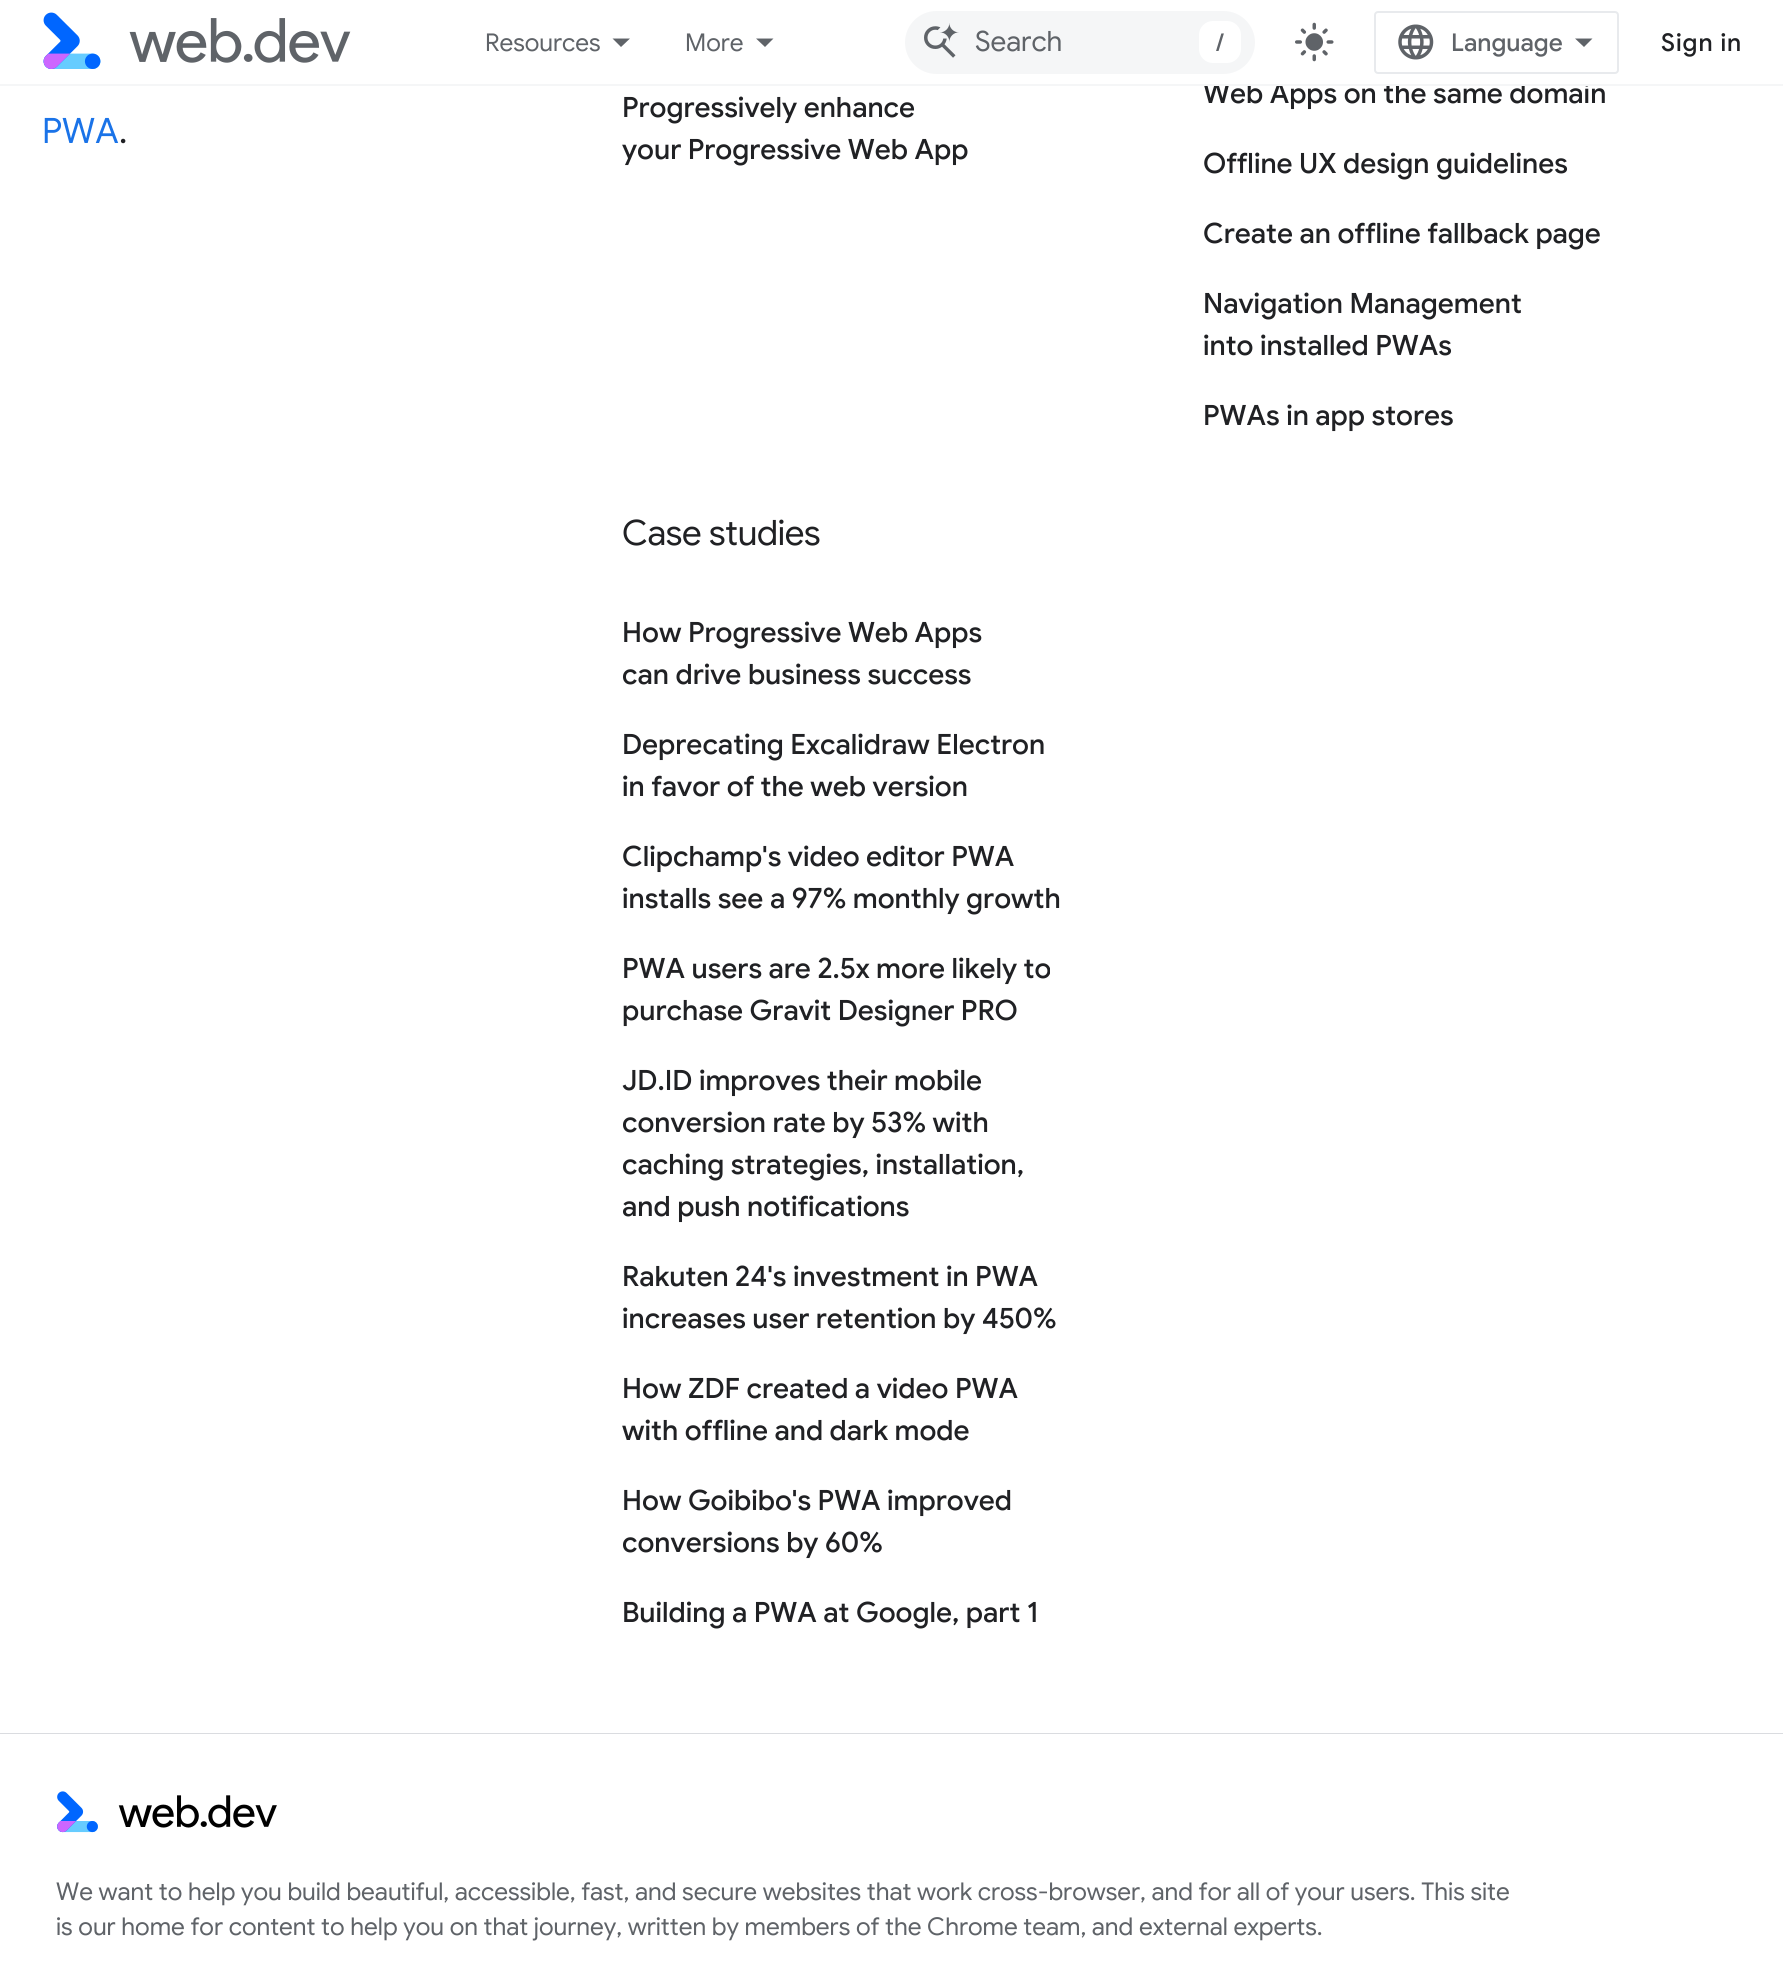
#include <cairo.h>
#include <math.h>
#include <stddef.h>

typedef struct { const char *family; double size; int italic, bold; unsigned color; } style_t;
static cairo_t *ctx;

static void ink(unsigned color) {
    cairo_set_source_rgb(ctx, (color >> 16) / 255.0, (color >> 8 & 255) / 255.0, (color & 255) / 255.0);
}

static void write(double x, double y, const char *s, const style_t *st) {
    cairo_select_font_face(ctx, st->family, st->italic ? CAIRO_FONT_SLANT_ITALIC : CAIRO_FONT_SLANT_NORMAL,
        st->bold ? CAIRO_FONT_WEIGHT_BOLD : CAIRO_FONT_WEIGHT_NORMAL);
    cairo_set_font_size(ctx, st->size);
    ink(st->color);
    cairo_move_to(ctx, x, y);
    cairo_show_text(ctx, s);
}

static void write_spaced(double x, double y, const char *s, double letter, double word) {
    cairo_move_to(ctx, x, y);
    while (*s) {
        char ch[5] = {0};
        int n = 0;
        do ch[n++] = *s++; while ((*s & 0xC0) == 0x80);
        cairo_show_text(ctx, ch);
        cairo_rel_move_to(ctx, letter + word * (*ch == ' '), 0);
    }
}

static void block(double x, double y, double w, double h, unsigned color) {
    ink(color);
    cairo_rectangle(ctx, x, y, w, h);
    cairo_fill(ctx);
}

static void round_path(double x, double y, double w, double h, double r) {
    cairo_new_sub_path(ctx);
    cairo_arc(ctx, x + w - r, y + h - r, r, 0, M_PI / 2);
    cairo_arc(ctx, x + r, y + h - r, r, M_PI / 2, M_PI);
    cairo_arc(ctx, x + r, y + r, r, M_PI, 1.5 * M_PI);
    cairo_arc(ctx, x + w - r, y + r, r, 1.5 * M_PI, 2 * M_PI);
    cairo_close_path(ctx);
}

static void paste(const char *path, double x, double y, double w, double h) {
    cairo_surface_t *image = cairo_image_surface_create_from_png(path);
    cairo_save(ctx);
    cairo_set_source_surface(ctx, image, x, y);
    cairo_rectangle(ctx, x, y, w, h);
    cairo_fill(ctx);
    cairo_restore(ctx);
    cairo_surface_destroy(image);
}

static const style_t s1 = {"Google Sans Medium", 28, 0, 0, 0x202124};
static const style_t s2 = {"Google Sans", 24.5, 0, 0, 0x5f6368};
static const style_t s3 = {"Google Sans", 28, 0, 0, 0x5f6368};
static const style_t s4 = {"Google Sans Medium", 24.5, 0, 0, 0x5f6368};
static const style_t s5 = {"Google Sans", 35, 0, 0, 0x1a73e8};
static const style_t s6 = {"Google Sans", 35, 0, 0, 0x202124};

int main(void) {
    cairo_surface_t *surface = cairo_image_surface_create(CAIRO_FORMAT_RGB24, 1783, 1966);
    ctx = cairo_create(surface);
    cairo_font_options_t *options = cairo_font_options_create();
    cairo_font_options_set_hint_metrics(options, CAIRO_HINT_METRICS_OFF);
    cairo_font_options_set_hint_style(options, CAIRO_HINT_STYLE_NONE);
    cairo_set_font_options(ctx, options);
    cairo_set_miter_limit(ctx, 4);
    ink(0xffffff);
    cairo_paint(ctx);
    write(1203, 103, "Web Apps on the same domain", &s1);
    block(1203, 82, 386, 2, 0xffffff);
    block(0, 84, 1783, 2, 0xf5f6f7);
    paste("pic1.png", 43, 12, 308, 57);
    write(485, 51, "Resources", &s2);
    cairo_new_path(ctx);
    cairo_move_to(ctx, 612.5, 38.5);
    cairo_line_to(ctx, 630, 38.5);
    cairo_line_to(ctx, 621, 47);
    cairo_close_path(ctx);
    cairo_fill(ctx);
    write(685, 51, "More", &s2);
    cairo_new_path(ctx);
    cairo_move_to(ctx, 756, 38.5);
    cairo_line_to(ctx, 773.5, 38.5);
    cairo_line_to(ctx, 765, 47);
    cairo_close_path(ctx);
    cairo_fill(ctx);
    ink(0xf5f6f7);
    round_path(905, 11, 350, 63, 31.5);
    cairo_fill(ctx);
    paste("pic2.png", 924, 23, 35, 35);
    write(975, 51, "Search", &s3);
    ink(0xffffff);
    round_path(1199, 21, 42, 42, 14);
    cairo_fill(ctx);
    write(1216, 51, "/", &s4);
    paste("pic3.png", 1295, 22, 39, 40);
    round_path(1375, 12, 243, 61, 3);
    ink(0xe8eaed);
    cairo_stroke(ctx);
    paste("pic4.png", 1398, 24, 36, 36);
    write(1451, 51, "Language", &s4);
    cairo_new_path(ctx);
    cairo_move_to(ctx, 1584, 47);
    cairo_line_to(ctx, 1575, 38.5);
    cairo_line_to(ctx, 1592.5, 38.5);
    cairo_close_path(ctx);
    cairo_fill(ctx);
    ink(0x202124);
    write_spaced(1661, 51, "Sign in", 1, 0);
    write(42, 143, "PWA", &s5);
    write(119, 143, ".", &s6);
    write(622, 117, "Progressively enhance", &s1);
    write(622, 159, "your Progressive Web App", &s1);
    write(1203, 173, "Offline UX design guidelines", &s1);
    write(1203, 243, "Create an offline fallback page", &s1);
    write(1203, 313, "Navigation Management", &s1);
    write(1203, 355, "into installed PWAs", &s1);
    write(1203, 425, "PWAs in app stores", &s1);
    cairo_select_font_face(ctx, "Google Sans", CAIRO_FONT_SLANT_NORMAL, CAIRO_FONT_WEIGHT_NORMAL);
    cairo_set_font_size(ctx, 35);
    write_spaced(622, 545, "Case studies", -0.3, 0);
    write(622, 642, "How Progressive Web Apps", &s1);
    write(622, 684, "can drive business success", &s1);
    write(622, 754, "Deprecating Excalidraw Electron", &s1);
    write(622, 796, "in favor of the web version", &s1);
    write(622, 866, "Clipchamp's video editor PWA", &s1);
    write(622, 908, "installs see a 97% monthly growth", &s1);
    write(622, 978, "PWA users are 2.5x more likely to", &s1);
    write(622, 1020, "purchase Gravit Designer PRO", &s1);
    write(622, 1090, "JD.ID improves their mobile", &s1);
    write(622, 1132, "conversion rate by 53% with", &s1);
    write(622, 1174, "caching strategies, installation,", &s1);
    write(622, 1216, "and push notifications", &s1);
    write(622, 1286, "Rakuten 24's investment in PWA", &s1);
    write(622, 1328, "increases user retention by 450%", &s1);
    write(622, 1398, "How ZDF created a video PWA", &s1);
    write(622, 1440, "with offline and dark mode", &s1);
    write(622, 1510, "How Goibibo's PWA improved", &s1);
    write(622, 1552, "conversions by 60%", &s1);
    write(622, 1622, "Building a PWA at Google, part 1", &s1);
    block(0, 1733, 1783, 1, 0xdadce0);
    paste("pic5.png", 57, 1791, 220, 42);
    write(56, 1900, "We want to help you build beautiful, accessible, fast, and secure websites that work cross-browser, and for all of your users. This site", &s2);
    write(56, 1935, "is our home for content to help you on that journey, written by members of the Chrome team, and external experts.", &s2);
    cairo_surface_write_to_png(surface, "screenshot.png");
    cairo_font_options_destroy(options);
    cairo_destroy(ctx);
    cairo_surface_destroy(surface);
    return 0;
}
